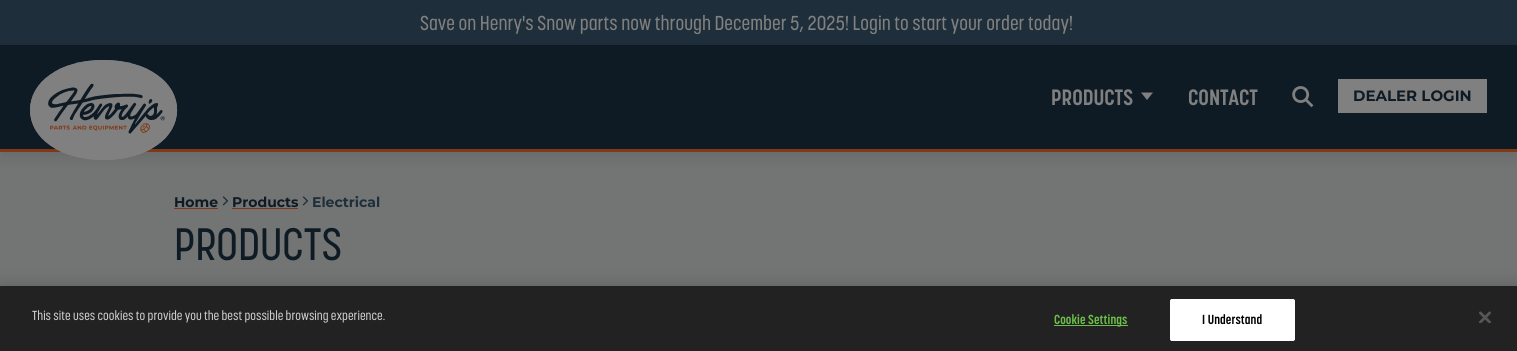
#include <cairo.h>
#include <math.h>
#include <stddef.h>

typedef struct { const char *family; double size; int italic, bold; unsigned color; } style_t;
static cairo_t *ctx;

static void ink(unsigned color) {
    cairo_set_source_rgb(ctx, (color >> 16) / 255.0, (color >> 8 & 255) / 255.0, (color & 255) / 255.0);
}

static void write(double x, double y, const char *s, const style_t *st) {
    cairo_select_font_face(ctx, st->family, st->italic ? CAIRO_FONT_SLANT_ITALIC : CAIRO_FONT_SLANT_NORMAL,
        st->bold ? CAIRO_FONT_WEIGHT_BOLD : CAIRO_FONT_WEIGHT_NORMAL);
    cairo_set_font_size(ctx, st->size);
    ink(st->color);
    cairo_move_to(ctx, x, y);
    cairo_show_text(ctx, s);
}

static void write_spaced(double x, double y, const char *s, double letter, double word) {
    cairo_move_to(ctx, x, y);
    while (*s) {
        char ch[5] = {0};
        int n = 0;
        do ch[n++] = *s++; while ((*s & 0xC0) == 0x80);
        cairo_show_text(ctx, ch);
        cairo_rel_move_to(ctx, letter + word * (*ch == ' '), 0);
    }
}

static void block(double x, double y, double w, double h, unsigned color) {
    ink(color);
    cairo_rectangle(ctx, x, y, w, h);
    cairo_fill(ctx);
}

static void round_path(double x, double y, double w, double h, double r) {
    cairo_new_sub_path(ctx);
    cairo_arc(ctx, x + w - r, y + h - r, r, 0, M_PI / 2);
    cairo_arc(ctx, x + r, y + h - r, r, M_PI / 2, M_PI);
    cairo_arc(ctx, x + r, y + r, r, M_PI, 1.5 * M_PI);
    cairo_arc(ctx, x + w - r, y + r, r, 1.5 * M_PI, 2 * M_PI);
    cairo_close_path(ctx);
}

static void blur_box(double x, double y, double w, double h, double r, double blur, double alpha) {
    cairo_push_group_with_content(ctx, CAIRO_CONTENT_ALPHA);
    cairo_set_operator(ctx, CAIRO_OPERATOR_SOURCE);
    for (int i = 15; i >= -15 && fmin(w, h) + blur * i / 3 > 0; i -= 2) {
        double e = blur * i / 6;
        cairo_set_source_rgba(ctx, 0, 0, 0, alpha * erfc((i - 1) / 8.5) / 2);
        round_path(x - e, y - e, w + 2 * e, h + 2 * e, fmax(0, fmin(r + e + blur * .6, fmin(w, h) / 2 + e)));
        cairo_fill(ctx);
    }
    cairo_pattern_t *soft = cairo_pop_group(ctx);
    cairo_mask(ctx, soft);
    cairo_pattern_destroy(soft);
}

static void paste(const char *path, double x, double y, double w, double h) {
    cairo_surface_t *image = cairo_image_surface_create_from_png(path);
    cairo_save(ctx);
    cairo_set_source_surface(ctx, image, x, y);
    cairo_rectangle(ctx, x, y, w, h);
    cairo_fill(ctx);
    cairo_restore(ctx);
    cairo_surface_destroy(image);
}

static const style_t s1 = {"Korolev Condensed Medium", 20, 0, 0, 0x808080};
static const style_t s2 = {"Korolev Condensed", 22, 0, 1, 0x808080};
static const style_t s3 = {"Montserrat", 15, 0, 1, 0x0f1b24};
static const style_t s4 = {"Montserrat", 14, 0, 1, 0x0f1b24};
static const style_t s5 = {"Montserrat", 14, 0, 1, 0x1e2e3a};
static const style_t s6 = {"Korolev Condensed Medium", 45, 0, 0, 0x0f1b24};
static const style_t s7 = {"Korolev Condensed Medium", 13, 0, 0, 0xcccccc};

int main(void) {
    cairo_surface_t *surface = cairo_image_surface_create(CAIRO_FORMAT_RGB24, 1517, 351);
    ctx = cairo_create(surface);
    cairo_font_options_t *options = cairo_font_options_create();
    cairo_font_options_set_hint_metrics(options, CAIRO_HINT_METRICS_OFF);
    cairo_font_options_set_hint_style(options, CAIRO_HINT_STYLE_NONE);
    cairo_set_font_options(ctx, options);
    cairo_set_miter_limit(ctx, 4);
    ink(0x737474);
    cairo_paint(ctx);
    block(0, 0, 1517, 45, 0x1e2e3a);
    write(420, 30, "Save on Henry's Snow parts now through December 5, 2025! Login to start your order today!", &s1);
    ink(0x000000);
    blur_box(0, 50, 1517, 107, 0, 7.5, 0.1);
    block(0, 45, 1517, 104, 0x0f1b24);
    block(0, 149, 1517, 3, 0x803817);
    paste("pic1.png", 30, 60, 148, 100);
    write(1051, 105, "PRODUCTS", &s2);
    cairo_new_path(ctx);
    cairo_move_to(ctx, 1153, 92.5);
    cairo_line_to(ctx, 1147, 100);
    cairo_line_to(ctx, 1141, 92.5);
    cairo_close_path(ctx);
    cairo_fill(ctx);
    write(1188, 105, "CONTACT", &s2);
    paste("pic2.png", 1292, 86, 22, 22);
    block(1338, 79, 149, 34, 0x808080);
    write(1353, 101, "DEALER LOGIN", &s3);
    write(174, 207, "Home", &s4);
    block(174, 208, 44, 1, 0x803817);
    paste("pic3.png", 222, 196, 7, 10);
    write(232, 207, "Products", &s4);
    block(232, 208, 66, 1, 0x803817);
    paste("pic3.png", 302, 196, 7, 10);
    write(312, 207, "Electrical", &s5);
    write(174, 260, "PRODUCTS", &s6);
    ink(0x000000);
    blur_box(0, 286, 1517, 65, 0, 9, 0.2);
    block(0, 286, 1517, 65, 0x222222);
    write(32, 320, "This site uses cookies to provide you the best possible browsing experience.", &s7);
    block(1054, 325, 74, 1, 0x6cc04a);
    cairo_select_font_face(ctx, "Korolev Condensed", CAIRO_FONT_SLANT_NORMAL, CAIRO_FONT_WEIGHT_BOLD);
    write_spaced(1054, 324, "Cookie Settings", 0.1, 0);
    ink(0xffffff);
    round_path(1170.5, 299.5, 124, 41, 1.5);
    cairo_fill_preserve(ctx);
    cairo_set_line_width(ctx, 1);
    cairo_stroke(ctx);
    ink(0x000000);
    write_spaced(1202, 324, "I Understand", 0.1, 0);
    paste("pic4.png", 1479, 311, 12, 12);
    cairo_surface_write_to_png(surface, "screenshot.png");
    cairo_font_options_destroy(options);
    cairo_destroy(ctx);
    cairo_surface_destroy(surface);
    return 0;
}
